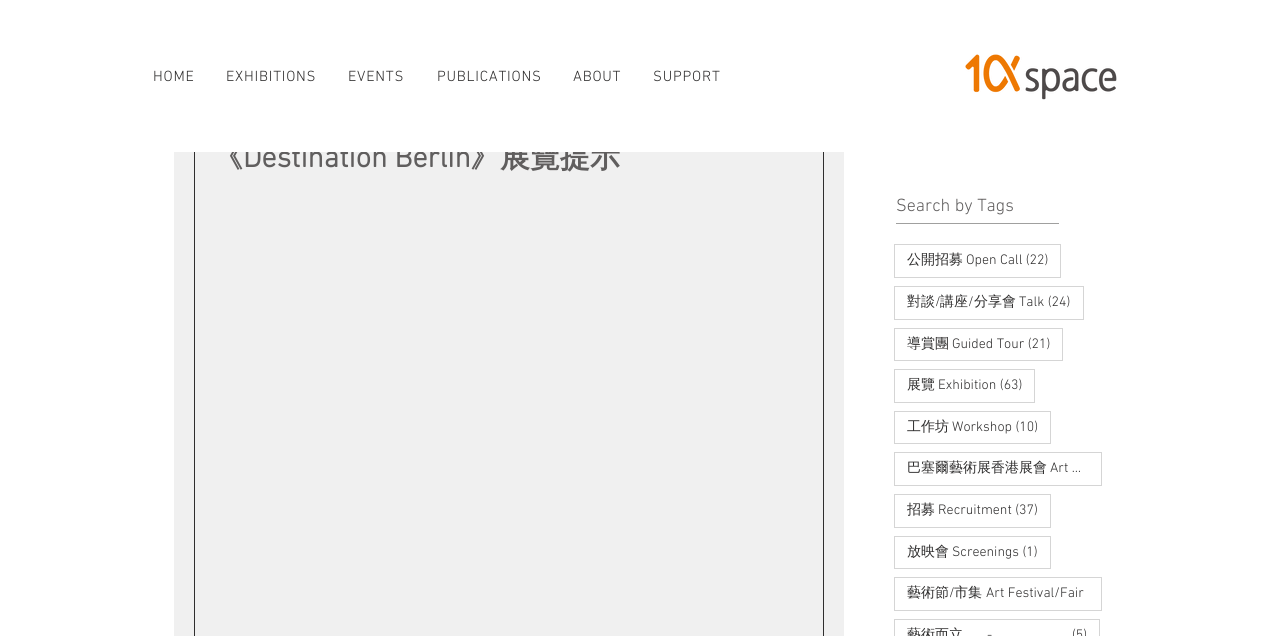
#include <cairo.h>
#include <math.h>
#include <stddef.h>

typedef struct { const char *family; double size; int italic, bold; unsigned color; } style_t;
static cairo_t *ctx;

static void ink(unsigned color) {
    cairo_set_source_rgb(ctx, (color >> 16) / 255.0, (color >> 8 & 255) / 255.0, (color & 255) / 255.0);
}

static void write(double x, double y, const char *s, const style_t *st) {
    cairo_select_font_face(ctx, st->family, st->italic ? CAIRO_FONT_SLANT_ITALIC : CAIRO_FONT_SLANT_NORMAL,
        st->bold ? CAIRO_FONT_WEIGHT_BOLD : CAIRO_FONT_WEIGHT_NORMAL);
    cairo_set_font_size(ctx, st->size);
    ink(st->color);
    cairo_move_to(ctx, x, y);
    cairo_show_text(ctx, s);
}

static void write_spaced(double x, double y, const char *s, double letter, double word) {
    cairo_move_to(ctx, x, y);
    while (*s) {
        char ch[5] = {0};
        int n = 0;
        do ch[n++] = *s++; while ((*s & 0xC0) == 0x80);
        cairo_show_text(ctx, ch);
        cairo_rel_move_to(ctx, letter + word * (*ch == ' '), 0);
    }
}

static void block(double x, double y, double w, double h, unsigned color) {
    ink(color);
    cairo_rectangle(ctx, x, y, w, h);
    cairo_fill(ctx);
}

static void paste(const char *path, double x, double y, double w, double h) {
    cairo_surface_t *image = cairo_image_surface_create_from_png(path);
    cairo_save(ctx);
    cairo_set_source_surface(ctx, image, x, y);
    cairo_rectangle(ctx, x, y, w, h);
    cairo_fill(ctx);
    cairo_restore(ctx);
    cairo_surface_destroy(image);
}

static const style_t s1 = {"WenQuanYi Zen Hei", 30, 0, 1, 0x605e5e};
static const style_t s2 = {"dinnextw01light", 30, 0, 1, 0x605e5e};
static const style_t s3 = {"dinnextw01light Light", 18, 0, 0, 0x605e5e};
static const style_t s4 = {"WenQuanYi Zen Hei Medium", 14, 0, 0, 0x2f2e2e};
static const style_t s5 = {"dinnextw01light Light", 14, 0, 0, 0x2f2e2e};

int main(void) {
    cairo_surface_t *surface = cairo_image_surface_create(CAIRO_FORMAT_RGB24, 1265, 636);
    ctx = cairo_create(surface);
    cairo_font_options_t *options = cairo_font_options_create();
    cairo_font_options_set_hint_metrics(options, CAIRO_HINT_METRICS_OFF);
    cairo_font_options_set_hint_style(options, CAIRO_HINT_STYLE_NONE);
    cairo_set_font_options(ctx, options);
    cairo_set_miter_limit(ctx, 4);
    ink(0xffffff);
    cairo_paint(ctx);
    cairo_select_font_face(ctx, "dinnextw01light Light", CAIRO_FONT_SLANT_NORMAL, CAIRO_FONT_WEIGHT_NORMAL);
    cairo_set_font_size(ctx, 15);
    ink(0x2f2e2e);
    write_spaced(153, 81, "HOME", 0.75, 0);
    block(174, 152, 670, 484, 0xf0f0f0);
    cairo_rectangle(ctx, 194.5, 71.5, 629, 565);
    ink(0x2f2e2e);
    cairo_set_line_width(ctx, 1);
    cairo_stroke(ctx);
    write(213, 167, "《", &s1);
    write(243, 167, "Destination Berlin", &s2);
    write(470, 167, "》展覽提示", &s1);
    block(194, 71, 630, 81, 0xffffff);
    cairo_select_font_face(ctx, "dinnextw01light Light", CAIRO_FONT_SLANT_NORMAL, CAIRO_FONT_WEIGHT_NORMAL);
    cairo_set_font_size(ctx, 15);
    ink(0x2f2e2e);
    write_spaced(226, 81, "EXHIBITIONS", 0.75, 0);
    write_spaced(348, 81, "EVENTS", 0.75, 0);
    write_spaced(437, 81, "PUBLICATIONS", 0.75, 0);
    write_spaced(573, 81, "ABOUT", 0.75, 0);
    write_spaced(653, 81, "SUPPORT", 0.75, 0);
    paste("pic1.png", 965, 54, 152, 46);
    write(896, 211, "Search by Tags", &s3);
    block(896, 223, 163, 1, 0xa0a09f);
    cairo_rectangle(ctx, 894.5, 244.5, 166, 33);
    ink(0xd5d5d5);
    cairo_stroke(ctx);
    write(907, 264, "公開招募", &s4);
    write(966, 264, "Open Call (22)", &s5);
    cairo_rectangle(ctx, 894.5, 286.5, 189, 33);
    ink(0xd5d5d5);
    cairo_stroke(ctx);
    write(907, 306, "對談", &s4);
    write(935, 306, "/", &s5);
    write(940, 306, "講座", &s4);
    write(968, 306, "/", &s5);
    write(974, 306, "分享會", &s4);
    write(1019, 306, "Talk (24)", &s5);
    cairo_rectangle(ctx, 894.5, 328.5, 168, 32);
    ink(0xd5d5d5);
    cairo_stroke(ctx);
    write(907, 348, "導賞團", &s4);
    write(952, 348, "Guided Tour (21)", &s5);
    cairo_rectangle(ctx, 894.5, 369.5, 140, 33);
    ink(0xd5d5d5);
    cairo_stroke(ctx);
    write(907, 389, "展覽", &s4);
    write(938, 389, "Exhibition (63)", &s5);
    cairo_rectangle(ctx, 894.5, 411.5, 156, 32);
    ink(0xd5d5d5);
    cairo_stroke(ctx);
    write(907, 431, "工作坊", &s4);
    write(952, 431, "Workshop (10)", &s5);
    cairo_rectangle(ctx, 894.5, 452.5, 207, 33);
    ink(0xd5d5d5);
    cairo_stroke(ctx);
    write(907, 472, "巴塞爾藝術展香港展會", &s4);
    write(1050, 472, "Art …", &s5);
    cairo_rectangle(ctx, 894.5, 494.5, 156, 33);
    ink(0xd5d5d5);
    cairo_stroke(ctx);
    write(907, 514, "招募", &s4);
    write(938, 514, "Recruitment (37)", &s5);
    cairo_rectangle(ctx, 894.5, 536.5, 156, 32);
    ink(0xd5d5d5);
    cairo_stroke(ctx);
    write(907, 556, "放映會", &s4);
    write(952, 556, "Screenings (1)", &s5);
    cairo_rectangle(ctx, 894.5, 577.5, 207, 33);
    ink(0xd5d5d5);
    cairo_stroke(ctx);
    write(907, 597, "藝術節", &s4);
    write(949, 597, "/", &s5);
    write(954, 597, "市集", &s4);
    write(986, 597, "Art Festival/Fair", &s5);
    cairo_rectangle(ctx, 894.5, 619.5, 205, 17);
    ink(0xd5d5d5);
    cairo_stroke(ctx);
    write(907, 639, "藝術而立", &s4);
    write(987, 639, "-", &s5);
    write(1072, 639, "(5)", &s5);
    cairo_surface_write_to_png(surface, "screenshot.png");
    cairo_font_options_destroy(options);
    cairo_destroy(ctx);
    cairo_surface_destroy(surface);
    return 0;
}
